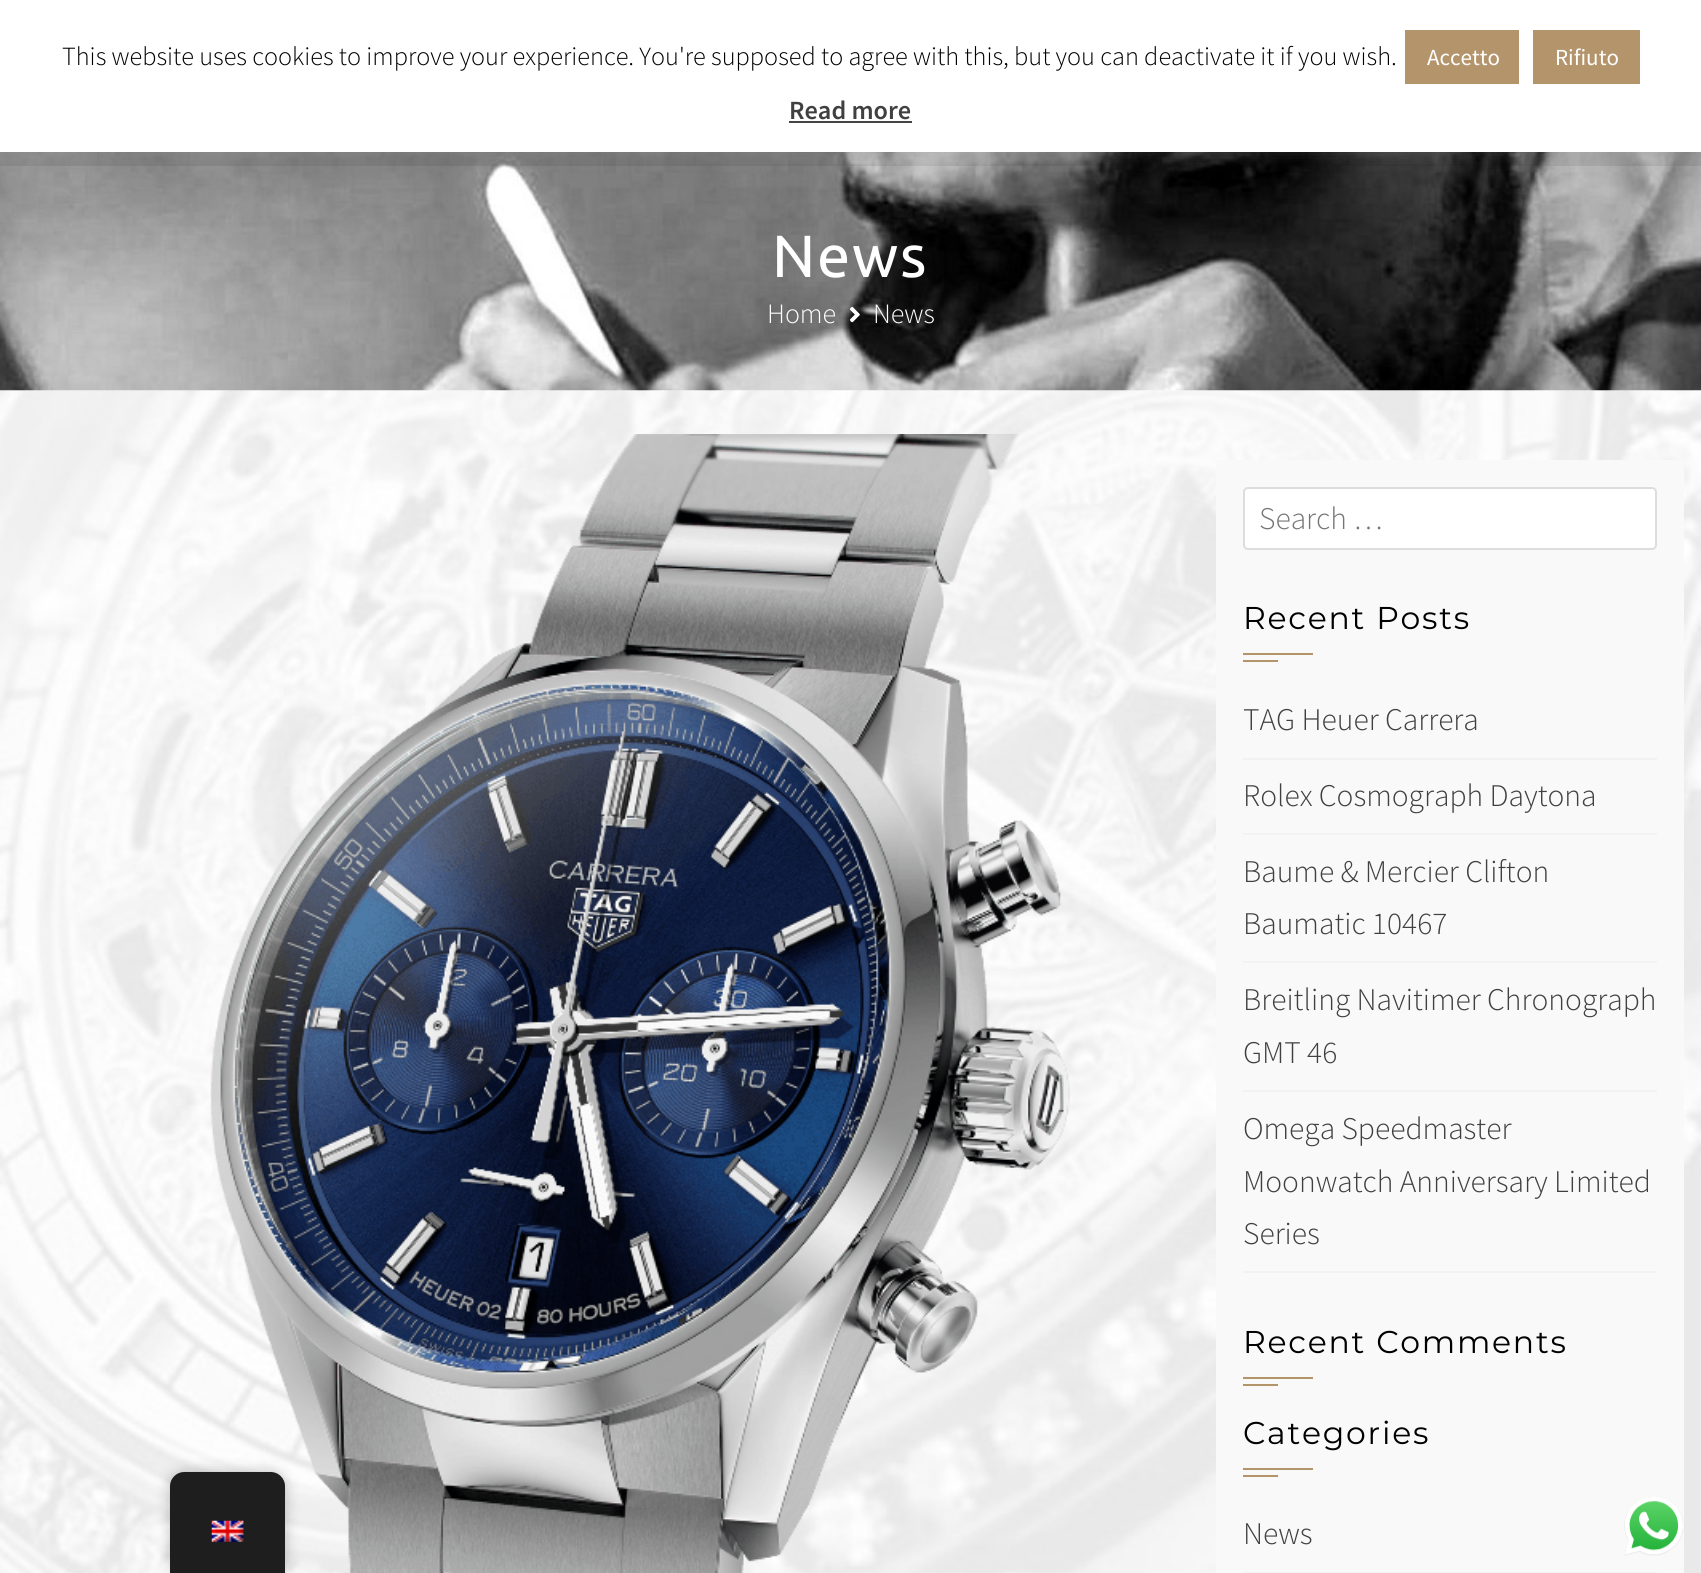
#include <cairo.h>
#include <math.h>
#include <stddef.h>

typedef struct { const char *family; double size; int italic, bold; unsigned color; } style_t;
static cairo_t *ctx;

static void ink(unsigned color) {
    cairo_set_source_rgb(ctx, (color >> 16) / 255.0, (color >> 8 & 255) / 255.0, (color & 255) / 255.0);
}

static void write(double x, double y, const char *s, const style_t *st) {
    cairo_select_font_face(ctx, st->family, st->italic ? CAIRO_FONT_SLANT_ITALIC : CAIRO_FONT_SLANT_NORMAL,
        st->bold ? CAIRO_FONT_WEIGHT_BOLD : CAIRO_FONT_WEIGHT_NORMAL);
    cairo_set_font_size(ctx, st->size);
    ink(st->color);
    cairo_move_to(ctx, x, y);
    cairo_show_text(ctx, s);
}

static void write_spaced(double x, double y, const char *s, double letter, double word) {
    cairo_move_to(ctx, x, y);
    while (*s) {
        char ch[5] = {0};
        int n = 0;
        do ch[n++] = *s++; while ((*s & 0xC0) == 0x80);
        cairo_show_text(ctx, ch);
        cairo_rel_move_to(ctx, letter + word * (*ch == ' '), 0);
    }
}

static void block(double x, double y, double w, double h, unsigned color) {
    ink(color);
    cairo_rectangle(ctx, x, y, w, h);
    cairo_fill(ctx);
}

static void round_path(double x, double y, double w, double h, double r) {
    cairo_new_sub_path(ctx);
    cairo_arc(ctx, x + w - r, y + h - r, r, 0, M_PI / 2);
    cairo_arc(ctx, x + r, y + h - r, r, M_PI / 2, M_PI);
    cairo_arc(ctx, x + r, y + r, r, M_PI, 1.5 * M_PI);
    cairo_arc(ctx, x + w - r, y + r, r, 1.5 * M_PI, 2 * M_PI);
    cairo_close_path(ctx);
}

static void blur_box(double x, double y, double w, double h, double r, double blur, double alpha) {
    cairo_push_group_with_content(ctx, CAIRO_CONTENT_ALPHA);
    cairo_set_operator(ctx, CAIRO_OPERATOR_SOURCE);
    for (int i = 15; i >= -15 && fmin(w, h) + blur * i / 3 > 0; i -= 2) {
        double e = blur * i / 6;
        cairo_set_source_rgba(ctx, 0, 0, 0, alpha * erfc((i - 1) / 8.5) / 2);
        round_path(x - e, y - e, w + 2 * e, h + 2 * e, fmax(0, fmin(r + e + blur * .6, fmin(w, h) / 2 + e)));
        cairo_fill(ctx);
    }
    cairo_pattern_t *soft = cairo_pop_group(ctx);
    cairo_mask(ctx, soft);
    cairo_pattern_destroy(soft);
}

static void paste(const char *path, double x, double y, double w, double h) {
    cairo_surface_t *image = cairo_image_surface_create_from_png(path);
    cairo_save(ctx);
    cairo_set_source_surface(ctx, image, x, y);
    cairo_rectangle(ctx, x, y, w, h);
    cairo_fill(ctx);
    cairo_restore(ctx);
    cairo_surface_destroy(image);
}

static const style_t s1 = {"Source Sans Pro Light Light", 26.25, 0, 0, 0x000000};
static const style_t s2 = {"Source Sans Pro", 23, 0, 0, 0xffffff};
static const style_t s3 = {"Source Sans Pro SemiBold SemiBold", 26.25, 0, 0, 0x404040};
static const style_t s4 = {"Source Sans Pro Light Light", 28, 0, 0, 0xffffff};
static const style_t s5 = {"Source Sans Pro Light Light", 31.5, 0, 0, 0x757575};
static const style_t s6 = {"Source Sans Pro Light Light", 31.5, 0, 0, 0x404040};

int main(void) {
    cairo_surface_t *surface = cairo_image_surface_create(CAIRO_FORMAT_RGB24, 1701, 1573);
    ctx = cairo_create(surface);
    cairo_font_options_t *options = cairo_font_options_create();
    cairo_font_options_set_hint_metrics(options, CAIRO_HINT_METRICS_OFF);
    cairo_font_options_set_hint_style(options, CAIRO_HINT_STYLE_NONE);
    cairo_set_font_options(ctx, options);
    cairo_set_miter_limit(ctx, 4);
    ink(0xffffff);
    cairo_paint(ctx);
    paste("pic1.png", 0, 390, 1701, 1183);
    paste("pic3.png", 0, 152, 1701, 239);
    cairo_set_source_rgba(ctx, 0, 0, 0, 0.08);
    cairo_rectangle(ctx, 0, 152, 1701, 14);
    cairo_fill(ctx);
    ink(0xacabab);
    blur_box(0, -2, 1701, 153, 0, 9, 0.3);
    block(0, 0, 1701, 152, 0xffffff);
    write(62, 65, "This website uses cookies to improve your experience. You're supposed to agree with this, but you can deactivate it if you wish.", &s1);
    block(1405, 30, 114, 54, 0xb4946b);
    write(1427, 65, "Accetto", &s2);
    block(1533, 30, 107, 54, 0xb4946b);
    write(1555, 65, "Rifiuto", &s2);
    write(789, 119, "Read more", &s3);
    block(789, 121, 123, 2, 0x444444);
    paste("pic5.png", 210, 434, 860, 1139);
    ink(0x000000);
    blur_box(170, 1472, 115, 101, 14, 7, 0.25);
    ink(0x1e1e1e);
    cairo_new_path(ctx);
    cairo_move_to(ctx, 184, 1472);
    cairo_line_to(ctx, 271, 1472);
    cairo_curve_to(ctx, 278.5, 1472, 285, 1478.5, 285, 1486);
    cairo_line_to(ctx, 285, 1573);
    cairo_line_to(ctx, 170, 1573);
    cairo_line_to(ctx, 170, 1486);
    cairo_curve_to(ctx, 170, 1478.5, 176.5, 1472, 184, 1472);
    cairo_close_path(ctx);
    cairo_fill(ctx);
    paste("pic2.png", 211, 1520, 33, 22);
    cairo_select_font_face(ctx, "Ubuntu", CAIRO_FONT_SLANT_NORMAL, CAIRO_FONT_WEIGHT_NORMAL);
    cairo_set_font_size(ctx, 59.5);
    ink(0xffffff);
    write_spaced(772, 277, "News", 1.75, 0);
    write(767, 323, "Home", &s4);
    paste("pic4.png", 850, 306, 10, 17);
    write(873, 323, "News", &s4);
    block(1216, 460, 468, 1113, 0xf9f9f9);
    ink(0xffffff);
    round_path(1244, 488, 412, 61, 4);
    cairo_fill_preserve(ctx);
    ink(0xdddddd);
    cairo_stroke(ctx);
    write(1259, 529, "Search …", &s5);
    cairo_select_font_face(ctx, "Montserrat", CAIRO_FONT_SLANT_NORMAL, CAIRO_FONT_WEIGHT_NORMAL);
    ink(0x000000);
    write_spaced(1243, 629, "Recent Posts", 1.75, 0);
    block(1243, 653, 70, 2, 0xb4946b);
    block(1243, 660, 35, 2, 0xb4946b);
    block(1243, 758, 414, 2, 0xf2f2f2);
    write(1243, 730, "TAG Heuer Carrera", &s6);
    block(1243, 833, 414, 2, 0xf2f2f2);
    write(1243, 806, "Rolex Cosmograph Daytona", &s6);
    block(1243, 961, 414, 2, 0xf2f2f2);
    write(1243, 882, "Baume & Mercier Clifton", &s6);
    write(1243, 934, "Baumatic 10467", &s6);
    block(1243, 1090, 414, 2, 0xf2f2f2);
    write(1243, 1010, "Breitling Navitimer Chronograph", &s6);
    write(1243, 1063, "GMT 46", &s6);
    block(1243, 1271, 414, 2, 0xf2f2f2);
    write(1243, 1139, "Omega Speedmaster", &s6);
    write(1243, 1192, "Moonwatch Anniversary Limited", &s6);
    write(1243, 1244, "Series", &s6);
    cairo_select_font_face(ctx, "Montserrat", CAIRO_FONT_SLANT_NORMAL, CAIRO_FONT_WEIGHT_NORMAL);
    ink(0x000000);
    write_spaced(1243, 1353, "Recent Comments", 1.75, 0);
    block(1243, 1377, 70, 2, 0xb4946b);
    block(1243, 1384, 35, 2, 0xb4946b);
    ink(0x000000);
    write_spaced(1243, 1444, "Categories", 1.75, 0);
    block(1243, 1468, 70, 2, 0xb4946b);
    block(1243, 1475, 35, 2, 0xb4946b);
    block(1243, 1572, 414, 1, 0xf2f2f2);
    write(1243, 1544, "News", &s6);
    paste("pic6.png", 1624, 1496, 59, 60);
    cairo_surface_write_to_png(surface, "screenshot.png");
    cairo_font_options_destroy(options);
    cairo_destroy(ctx);
    cairo_surface_destroy(surface);
    return 0;
}
